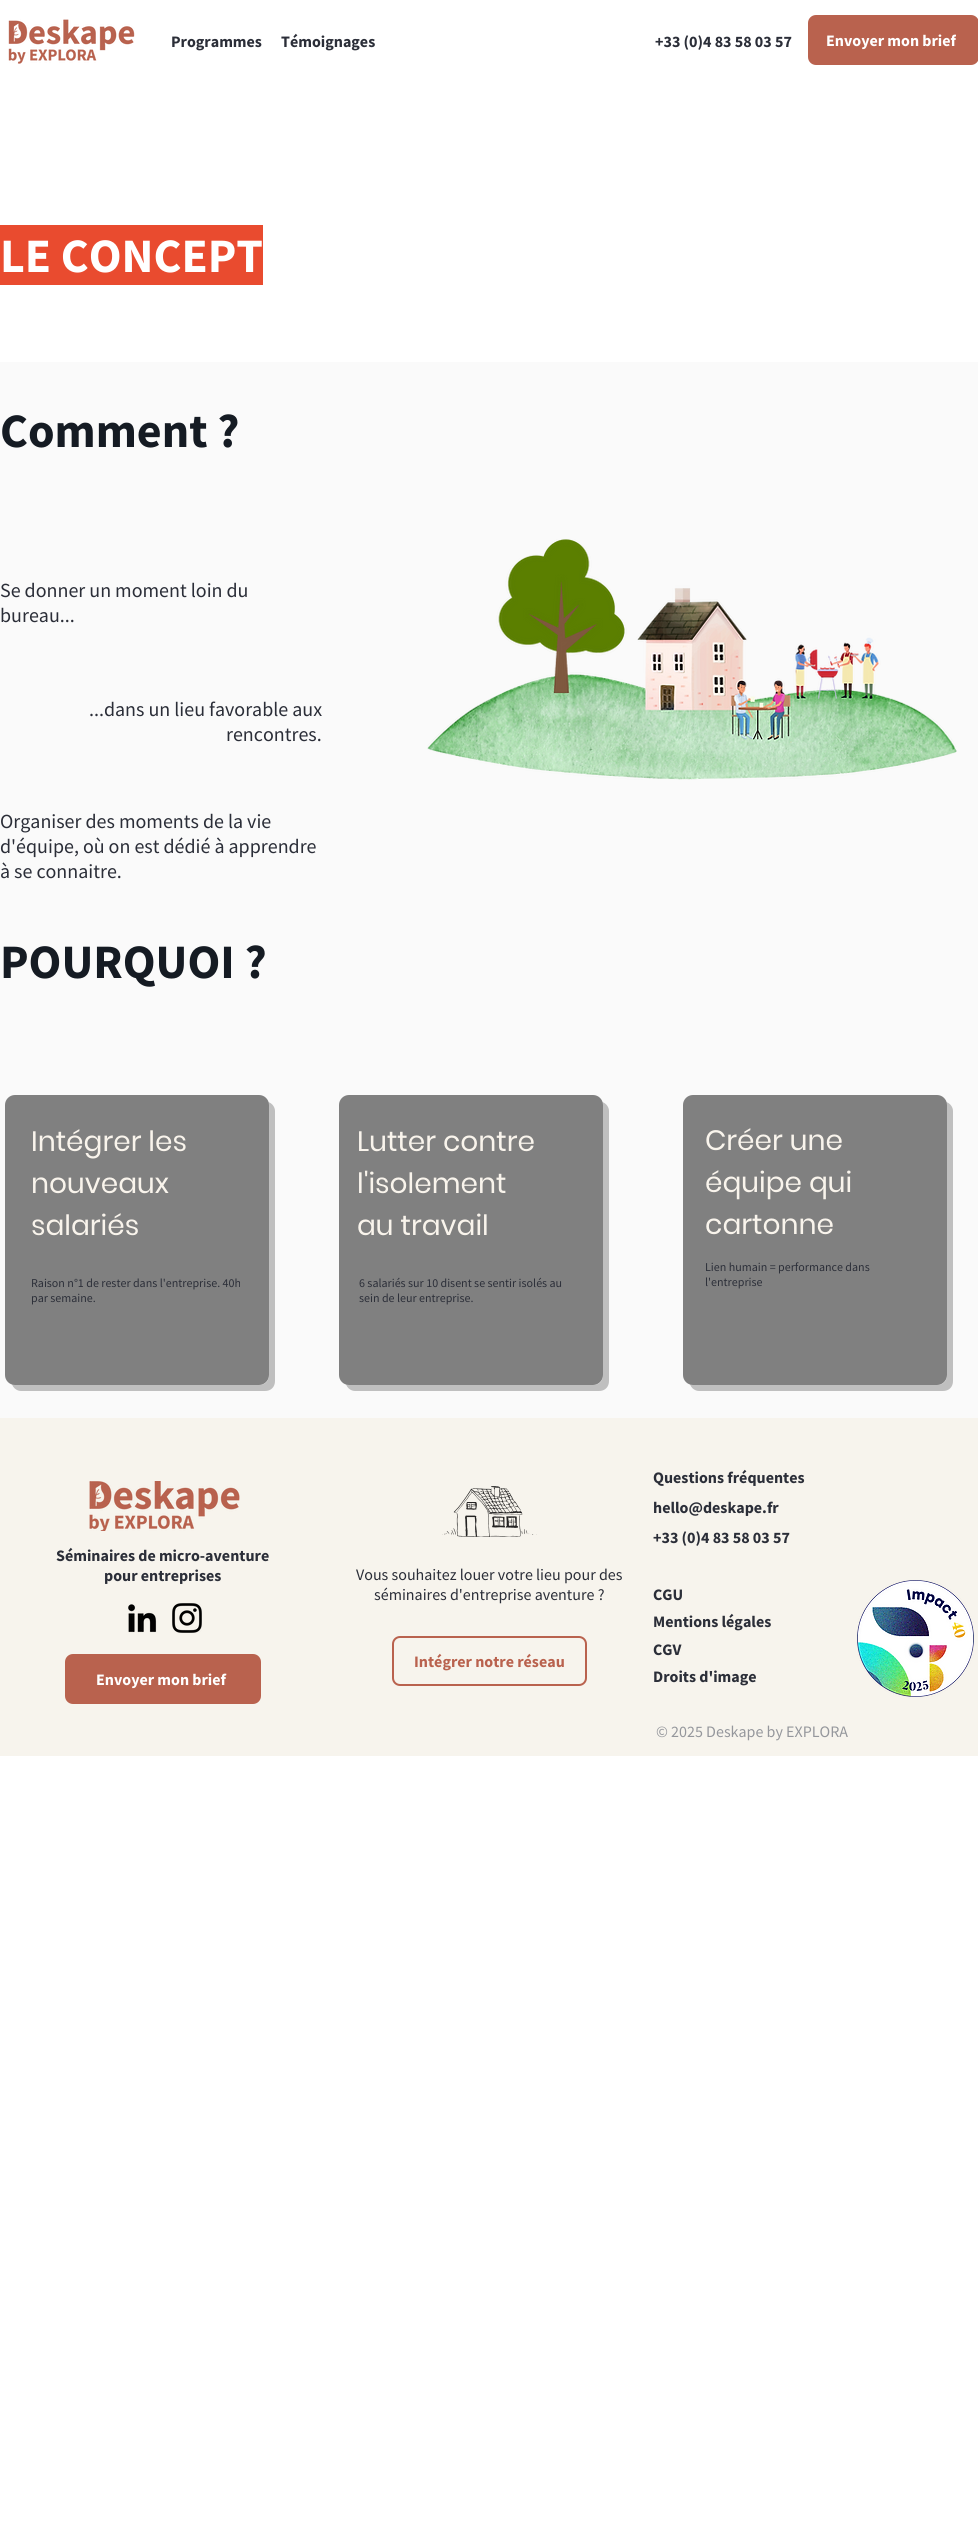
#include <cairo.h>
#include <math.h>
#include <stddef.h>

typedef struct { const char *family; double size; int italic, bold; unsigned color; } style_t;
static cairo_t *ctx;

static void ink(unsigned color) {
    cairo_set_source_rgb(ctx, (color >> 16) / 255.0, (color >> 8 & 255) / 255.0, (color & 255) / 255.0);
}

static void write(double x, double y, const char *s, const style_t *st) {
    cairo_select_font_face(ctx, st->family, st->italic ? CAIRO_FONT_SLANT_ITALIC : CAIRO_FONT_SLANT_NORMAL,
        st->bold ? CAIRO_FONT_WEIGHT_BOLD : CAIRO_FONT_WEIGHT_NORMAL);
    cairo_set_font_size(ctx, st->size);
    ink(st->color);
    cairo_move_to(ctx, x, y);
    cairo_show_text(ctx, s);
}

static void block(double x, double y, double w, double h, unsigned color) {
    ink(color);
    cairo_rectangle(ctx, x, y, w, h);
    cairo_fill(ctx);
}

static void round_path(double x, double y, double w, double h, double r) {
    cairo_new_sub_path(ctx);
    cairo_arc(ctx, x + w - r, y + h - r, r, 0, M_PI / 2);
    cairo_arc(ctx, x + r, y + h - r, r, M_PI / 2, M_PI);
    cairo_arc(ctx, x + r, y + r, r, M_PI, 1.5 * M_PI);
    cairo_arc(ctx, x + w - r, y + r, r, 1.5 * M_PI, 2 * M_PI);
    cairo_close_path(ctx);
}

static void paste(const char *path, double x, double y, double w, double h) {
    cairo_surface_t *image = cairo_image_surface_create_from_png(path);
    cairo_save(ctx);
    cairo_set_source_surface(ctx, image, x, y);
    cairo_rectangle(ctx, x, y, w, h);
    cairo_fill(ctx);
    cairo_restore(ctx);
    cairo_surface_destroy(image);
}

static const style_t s1 = {"Source Sans Pro", 16, 0, 1, 0x2b2e38};
static const style_t s2 = {"Source Sans Pro", 16, 0, 1, 0xffffff};
static const style_t s3 = {"Source Sans Pro", 48, 0, 1, 0xffffff};
static const style_t s4 = {"Source Sans Pro", 48, 0, 1, 0x151b23};
static const style_t s5 = {"Source Sans Pro", 20, 0, 0, 0x2b2e38};
static const style_t s6 = {"Poppins", 28, 0, 0, 0xf9f4ec};
static const style_t s7 = {"Source Sans Pro", 12, 0, 0, 0x2b2e38};
static const style_t s8 = {"Source Sans Pro", 16, 0, 0, 0x2b2e38};
static const style_t s9 = {"Source Sans Pro", 16, 0, 1, 0xb9624e};
static const style_t s10 = {"Source Sans Pro", 16, 0, 0, 0x95979c};

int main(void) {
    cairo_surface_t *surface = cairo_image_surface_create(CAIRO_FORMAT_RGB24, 978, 2535);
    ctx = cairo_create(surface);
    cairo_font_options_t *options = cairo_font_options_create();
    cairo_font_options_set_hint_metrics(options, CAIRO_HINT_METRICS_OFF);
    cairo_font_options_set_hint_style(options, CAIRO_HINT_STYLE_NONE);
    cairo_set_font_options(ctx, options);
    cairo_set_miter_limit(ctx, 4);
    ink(0xffffff);
    cairo_paint(ctx);
    paste("pic1.png", 8, 19, 127, 45);
    write(171, 47, "Programmes", &s1);
    write(281, 47, "Témoignages", &s1);
    write(655, 47, "+33 (0)4 83 58 03 57", &s1);
    ink(0xb9624e);
    round_path(808, 15, 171, 50, 8);
    cairo_fill(ctx);
    cairo_save(ctx);
    cairo_rectangle(ctx, 826, 30, 130, 20);
    cairo_clip(ctx);
    write(826, 46, "Envoyer mon brief", &s2);
    cairo_restore(ctx);
    block(0, 225, 263, 60, 0xe94b2f);
    write(0, 272, "LE CONCEPT", &s3);
    block(0, 362, 978, 1056, 0xfafafa);
    write(0, 447, "Comment ?", &s4);
    write(0, 597, "Se donner un moment loin du", &s5);
    write(0, 622, "bureau...", &s5);
    paste("pic2.png", 427, 539, 530, 241);
    write(89, 716, "...dans un lieu favorable aux", &s5);
    write(226, 741, "rencontres.", &s5);
    write(0, 828, "Organiser des moments de la vie", &s5);
    write(0, 853, "d'équipe, où on est dédié à apprendre", &s5);
    write(0, 878, "à se connaitre.", &s5);
    write(0, 978, "POURQUOI ?", &s4);
    ink(0xbfbfbf);
    cairo_new_path(ctx);
    cairo_move_to(ctx, 12, 1384);
    cairo_curve_to(ctx, 13, 1388, 17, 1391, 21, 1391);
    cairo_line_to(ctx, 265, 1391);
    cairo_curve_to(ctx, 271, 1391, 275, 1387, 275, 1381);
    cairo_line_to(ctx, 275, 1111);
    cairo_curve_to(ctx, 275, 1107, 272, 1103, 268, 1102);
    cairo_line_to(ctx, 269, 1105);
    cairo_line_to(ctx, 269, 1375);
    cairo_curve_to(ctx, 269, 1381, 265, 1385, 259, 1385);
    cairo_line_to(ctx, 15, 1385);
    cairo_close_path(ctx);
    cairo_fill(ctx);
    ink(0x808080);
    round_path(5, 1095, 264, 290, 10);
    cairo_fill(ctx);
    write(31, 1151, "Intégrer les", &s6);
    write(31, 1193, "nouveaux", &s6);
    write(31, 1235, "salariés", &s6);
    write(31, 1287, "Raison n°1 de rester dans l'entreprise. 40h", &s7);
    write(31, 1302, "par semaine.", &s7);
    ink(0xbfbfbf);
    cairo_new_path(ctx);
    cairo_move_to(ctx, 346, 1384);
    cairo_curve_to(ctx, 347, 1388, 351, 1391, 355, 1391);
    cairo_line_to(ctx, 599, 1391);
    cairo_curve_to(ctx, 605, 1391, 609, 1387, 609, 1381);
    cairo_line_to(ctx, 609, 1111);
    cairo_curve_to(ctx, 609, 1107, 606, 1103, 602, 1102);
    cairo_line_to(ctx, 603, 1105);
    cairo_line_to(ctx, 603, 1375);
    cairo_curve_to(ctx, 603, 1381, 599, 1385, 593, 1385);
    cairo_line_to(ctx, 349, 1385);
    cairo_close_path(ctx);
    cairo_fill(ctx);
    ink(0x808080);
    round_path(339, 1095, 264, 290, 10);
    cairo_fill(ctx);
    write(357, 1151, "Lutter contre", &s6);
    write(357, 1193, "l'isolement", &s6);
    write(357, 1235, "au travail", &s6);
    write(359, 1287, "6 salariés sur 10 disent se sentir isolés au", &s7);
    write(359, 1302, "sein de leur entreprise.", &s7);
    ink(0xbfbfbf);
    cairo_new_path(ctx);
    cairo_move_to(ctx, 690, 1384);
    cairo_curve_to(ctx, 691, 1388, 695, 1391, 699, 1391);
    cairo_line_to(ctx, 943, 1391);
    cairo_curve_to(ctx, 949, 1391, 953, 1387, 953, 1381);
    cairo_line_to(ctx, 953, 1111);
    cairo_curve_to(ctx, 953, 1107, 950, 1103, 946, 1102);
    cairo_line_to(ctx, 947, 1105);
    cairo_line_to(ctx, 947, 1375);
    cairo_curve_to(ctx, 947, 1381, 943, 1385, 937, 1385);
    cairo_line_to(ctx, 693, 1385);
    cairo_close_path(ctx);
    cairo_fill(ctx);
    ink(0x808080);
    round_path(683, 1095, 264, 290, 10);
    cairo_fill(ctx);
    write(705, 1150, "Créer une", &s6);
    write(705, 1192, "équipe qui", &s6);
    write(705, 1234, "cartonne", &s6);
    write(705, 1271, "Lien humain = performance dans", &s7);
    write(705, 1286, "l'entreprise", &s7);
    block(0, 1418, 978, 338, 0xf7f4ed);
    paste("pic3.png", 89, 1481, 151, 50);
    write(56, 1561, "Séminaires de micro-aventure", &s1);
    write(104, 1581, "pour entreprises", &s1);
    paste("pic4.png", 128, 1604, 29, 29);
    paste("pic5.png", 172, 1603, 30, 30);
    ink(0xb9624e);
    round_path(65, 1654, 196, 50, 8);
    cairo_fill(ctx);
    write(96, 1685, "Envoyer mon brief", &s2);
    paste("pic6.png", 442, 1486, 95, 51);
    write(356, 1580, "Vous souhaitez louer votre lieu pour des", &s8);
    write(374, 1600, "séminaires d'entreprise aventure ?", &s8);
    round_path(393, 1637, 193, 48, 7);
    ink(0xb9624e);
    cairo_stroke(ctx);
    write(414, 1667, "Intégrer notre réseau", &s9);
    write(653, 1483, "Questions fréquentes", &s1);
    write(653, 1513, "hello@deskape.fr", &s1);
    write(653, 1543, "+33 (0)4 83 58 03 57", &s1);
    write(653, 1600, "CGU", &s1);
    paste("pic7.png", 857, 1580, 117, 117);
    write(653, 1627, "Mentions légales", &s1);
    write(653, 1655, "CGV", &s1);
    write(653, 1682, "Droits d'image", &s1);
    write(656, 1737, "© 2025 Deskape by EXPLORA", &s10);
    cairo_surface_write_to_png(surface, "screenshot.png");
    cairo_font_options_destroy(options);
    cairo_destroy(ctx);
    cairo_surface_destroy(surface);
    return 0;
}
